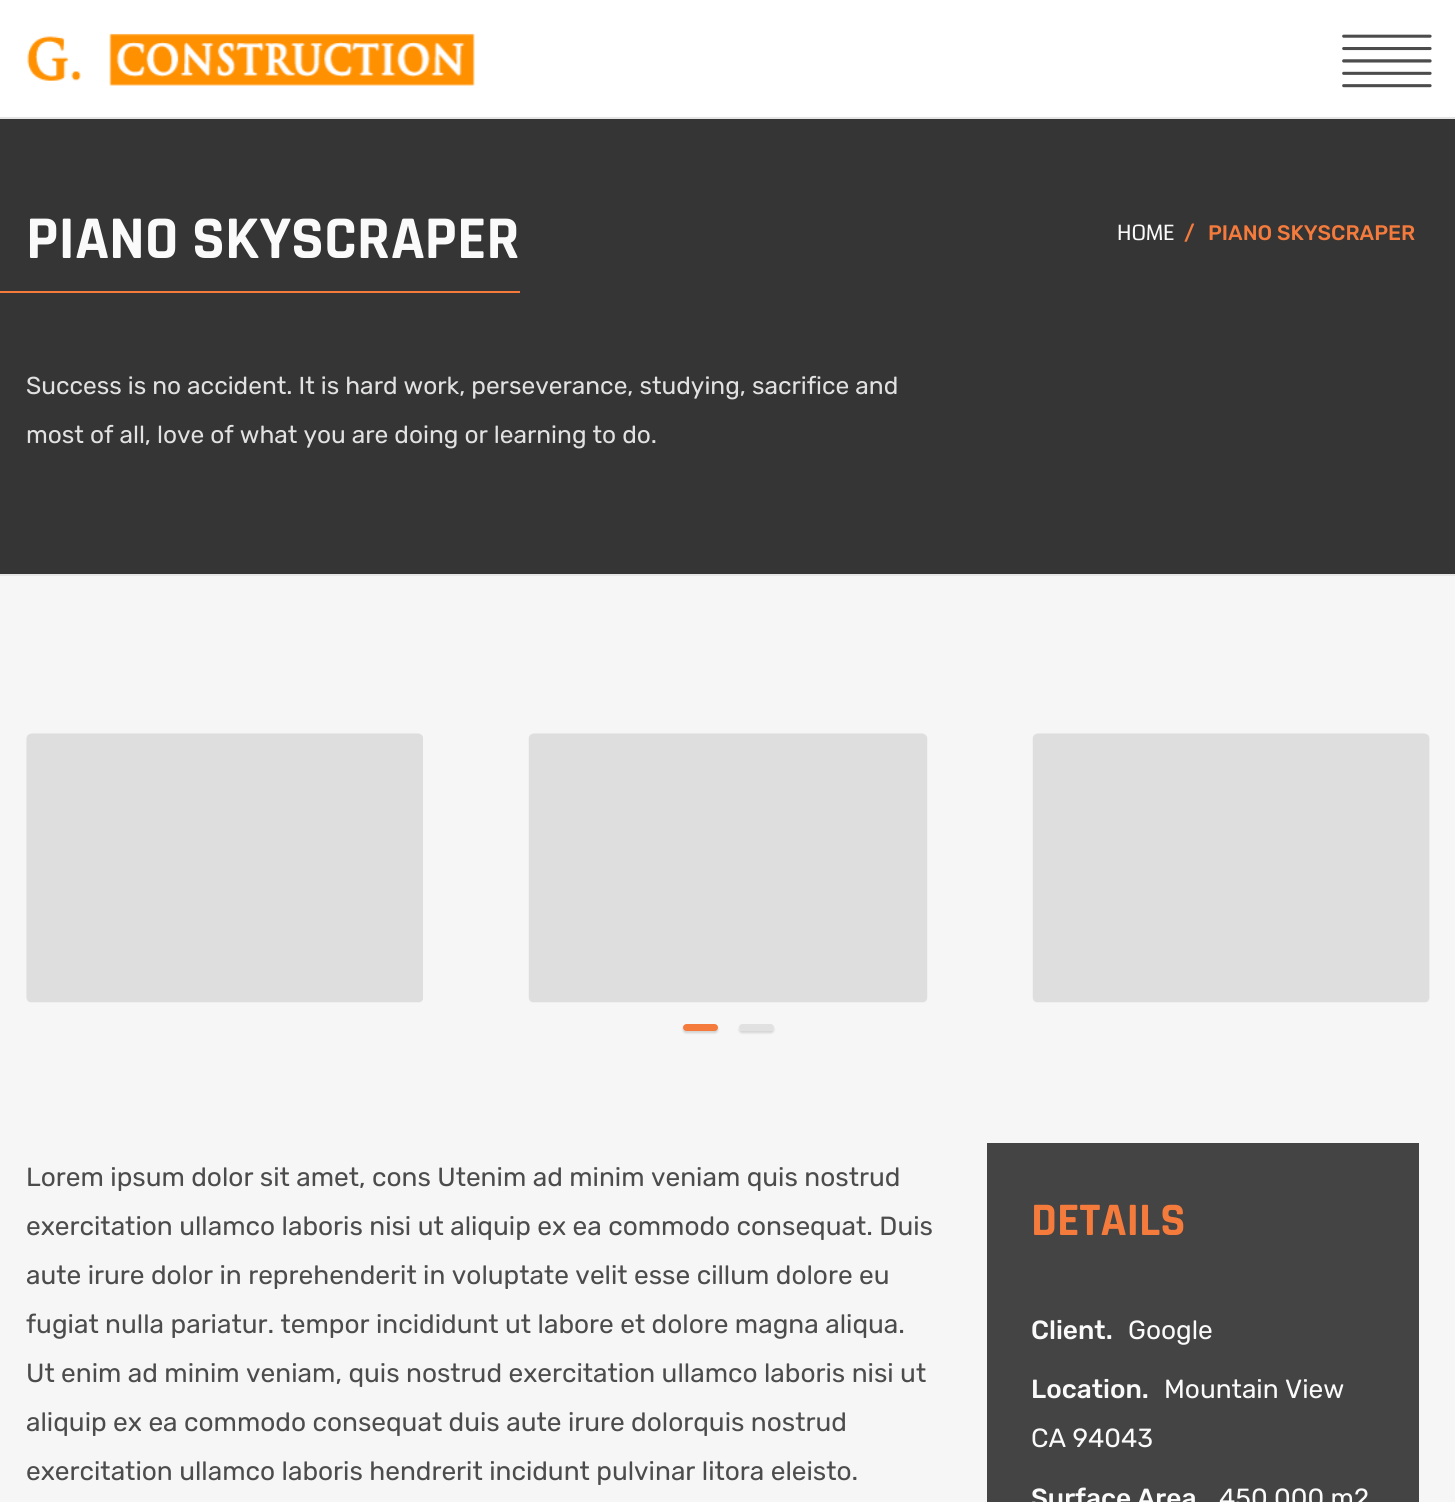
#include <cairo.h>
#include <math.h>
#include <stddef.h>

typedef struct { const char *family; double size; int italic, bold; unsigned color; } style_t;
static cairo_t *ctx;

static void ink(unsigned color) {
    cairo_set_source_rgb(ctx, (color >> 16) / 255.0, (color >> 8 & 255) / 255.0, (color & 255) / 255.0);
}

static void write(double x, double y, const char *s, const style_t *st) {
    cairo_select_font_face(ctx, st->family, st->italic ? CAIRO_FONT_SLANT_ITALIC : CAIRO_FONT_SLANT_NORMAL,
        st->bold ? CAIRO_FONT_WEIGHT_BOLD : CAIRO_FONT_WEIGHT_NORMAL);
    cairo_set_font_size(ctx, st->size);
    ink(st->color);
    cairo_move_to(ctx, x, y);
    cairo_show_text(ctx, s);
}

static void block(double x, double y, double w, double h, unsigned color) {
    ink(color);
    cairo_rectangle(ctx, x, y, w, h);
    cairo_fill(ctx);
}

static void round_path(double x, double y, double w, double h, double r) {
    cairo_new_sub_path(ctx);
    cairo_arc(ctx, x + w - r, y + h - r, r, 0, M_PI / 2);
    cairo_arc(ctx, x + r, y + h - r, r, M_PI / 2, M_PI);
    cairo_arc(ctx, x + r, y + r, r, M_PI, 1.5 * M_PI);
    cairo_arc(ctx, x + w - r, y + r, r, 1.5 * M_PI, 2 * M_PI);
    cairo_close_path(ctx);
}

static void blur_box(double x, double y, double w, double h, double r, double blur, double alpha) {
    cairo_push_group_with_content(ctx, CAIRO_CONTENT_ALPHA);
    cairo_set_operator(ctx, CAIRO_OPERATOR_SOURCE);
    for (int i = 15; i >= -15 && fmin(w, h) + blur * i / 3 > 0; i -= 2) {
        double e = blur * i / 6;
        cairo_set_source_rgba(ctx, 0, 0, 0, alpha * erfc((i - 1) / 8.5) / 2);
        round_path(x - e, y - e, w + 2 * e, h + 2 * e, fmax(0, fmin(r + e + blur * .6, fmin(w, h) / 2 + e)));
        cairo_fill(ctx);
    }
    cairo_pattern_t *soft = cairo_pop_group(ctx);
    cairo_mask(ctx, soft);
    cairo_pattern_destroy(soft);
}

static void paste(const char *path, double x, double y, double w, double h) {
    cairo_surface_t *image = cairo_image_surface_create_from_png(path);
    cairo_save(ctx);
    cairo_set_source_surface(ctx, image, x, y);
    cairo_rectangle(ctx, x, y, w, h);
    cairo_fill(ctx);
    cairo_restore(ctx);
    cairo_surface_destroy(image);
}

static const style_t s1 = {"Rajdhani", 61.25, 0, 1, 0xfafafa};
static const style_t s2 = {"Rubik", 24.5, 0, 0, 0xe1e1e1};
static const style_t s3 = {"Coda", 21, 0, 0, 0xfafafa};
static const style_t s4 = {"Rubik Medium", 21, 0, 0, 0xf57b3c};
static const style_t s5 = {"Rubik", 26.25, 0, 0, 0x4c4c4c};
static const style_t s6 = {"Rajdhani", 47, 0, 1, 0xf57b3c};
static const style_t s7 = {"Rubik Medium", 26.25, 0, 0, 0xfafafa};
static const style_t s8 = {"Rubik", 26.25, 0, 0, 0xfafafa};

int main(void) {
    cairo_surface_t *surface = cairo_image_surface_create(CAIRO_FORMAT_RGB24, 1455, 1502);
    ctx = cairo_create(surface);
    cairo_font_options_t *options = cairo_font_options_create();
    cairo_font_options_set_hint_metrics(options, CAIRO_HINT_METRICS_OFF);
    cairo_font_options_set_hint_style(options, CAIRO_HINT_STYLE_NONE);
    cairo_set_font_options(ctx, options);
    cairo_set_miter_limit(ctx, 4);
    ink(0xf6f6f6);
    cairo_paint(ctx);
    block(0, 0, 1455, 117, 0xffffff);
    block(0, 117, 1455, 2, 0xe4e4e4);
    paste("pic1.png", 27, 33, 448, 53);
    paste("pic2.png", 1342, 34, 90, 54);
    block(0, 119, 1455, 455, 0x353535);
    block(0, 574, 1455, 2, 0xe6e6e6);
    write(26, 258, "PIANO SKYSCRAPER", &s1);
    block(0, 291, 520, 2, 0xf57b3c);
    write(26, 394, "Success is no accident. It is hard work, perseverance, studying, sacrifice and", &s2);
    write(26, 443, "most of all, love of what you are doing or learning to do.", &s2);
    write(1117, 240, "HOME", &s3);
    write(1184, 240, "/", &s4);
    write(1208, 240, "PIANO SKYSCRAPER", &s4);
    paste("pic3.png", 26, 733, 397, 270);
    paste("pic4.png", 528, 733, 400, 270);
    paste("pic5.png", 1032, 733, 398, 270);
    ink(0x000000);
    blur_box(683, 1026, 35, 7, 3.5, 1, 0.15);
    ink(0xf57b3c);
    round_path(683, 1024, 35, 7, 3.5);
    cairo_fill(ctx);
    cairo_save(ctx);
    cairo_set_fill_rule(ctx, CAIRO_FILL_RULE_EVEN_ODD);
    cairo_new_path(ctx);
    cairo_move_to(ctx, 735, 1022);
    cairo_line_to(ctx, 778, 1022);
    cairo_line_to(ctx, 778, 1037);
    cairo_line_to(ctx, 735, 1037);
    cairo_close_path(ctx);
    cairo_move_to(ctx, 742.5, 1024);
    cairo_line_to(ctx, 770.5, 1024);
    cairo_curve_to(ctx, 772.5, 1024, 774, 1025.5, 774, 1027.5);
    cairo_curve_to(ctx, 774, 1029.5, 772.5, 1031, 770.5, 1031);
    cairo_line_to(ctx, 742.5, 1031);
    cairo_curve_to(ctx, 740.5, 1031, 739, 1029.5, 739, 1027.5);
    cairo_curve_to(ctx, 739, 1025.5, 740.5, 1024, 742.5, 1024);
    cairo_close_path(ctx);
    cairo_clip(ctx);
    ink(0x191919);
    blur_box(739, 1026, 35, 7, 3.5, 1, 0.15);
    cairo_restore(ctx);
    cairo_set_source_rgba(ctx, 0.875, 0.875, 0.875, 0.9);
    round_path(739, 1024, 35, 7, 3.5);
    cairo_fill(ctx);
    write(26, 1186, "Lorem ipsum dolor sit amet, cons Utenim ad minim veniam quis nostrud", &s5);
    write(26, 1235, "exercitation ullamco laboris nisi ut aliquip ex ea commodo consequat. Duis", &s5);
    write(26, 1284, "aute irure dolor in reprehenderit in voluptate velit esse cillum dolore eu", &s5);
    write(26, 1333, "fugiat nulla pariatur. tempor incididunt ut labore et dolore magna aliqua.", &s5);
    write(26, 1382, "Ut enim ad minim veniam, quis nostrud exercitation ullamco laboris nisi ut", &s5);
    write(26, 1431, "aliquip ex ea commodo consequat duis aute irure dolorquis nostrud", &s5);
    write(26, 1480, "exercitation ullamco laboris hendrerit incidunt pulvinar litora eleisto.", &s5);
    block(987, 1143, 432, 359, 0x444444);
    write(1031, 1235, "DETAILS", &s6);
    write(1031, 1339, "Client.", &s7);
    write(1128, 1339, "Google", &s8);
    write(1031, 1398, "Location.", &s7);
    write(1164, 1398, "Mountain View", &s8);
    write(1031, 1447, "CA 94043", &s8);
    write(1031, 1507, "Surface Area", &s7);
    write(1219, 1507, "450,000 m2", &s8);
    cairo_surface_write_to_png(surface, "screenshot.png");
    cairo_font_options_destroy(options);
    cairo_destroy(ctx);
    cairo_surface_destroy(surface);
    return 0;
}
